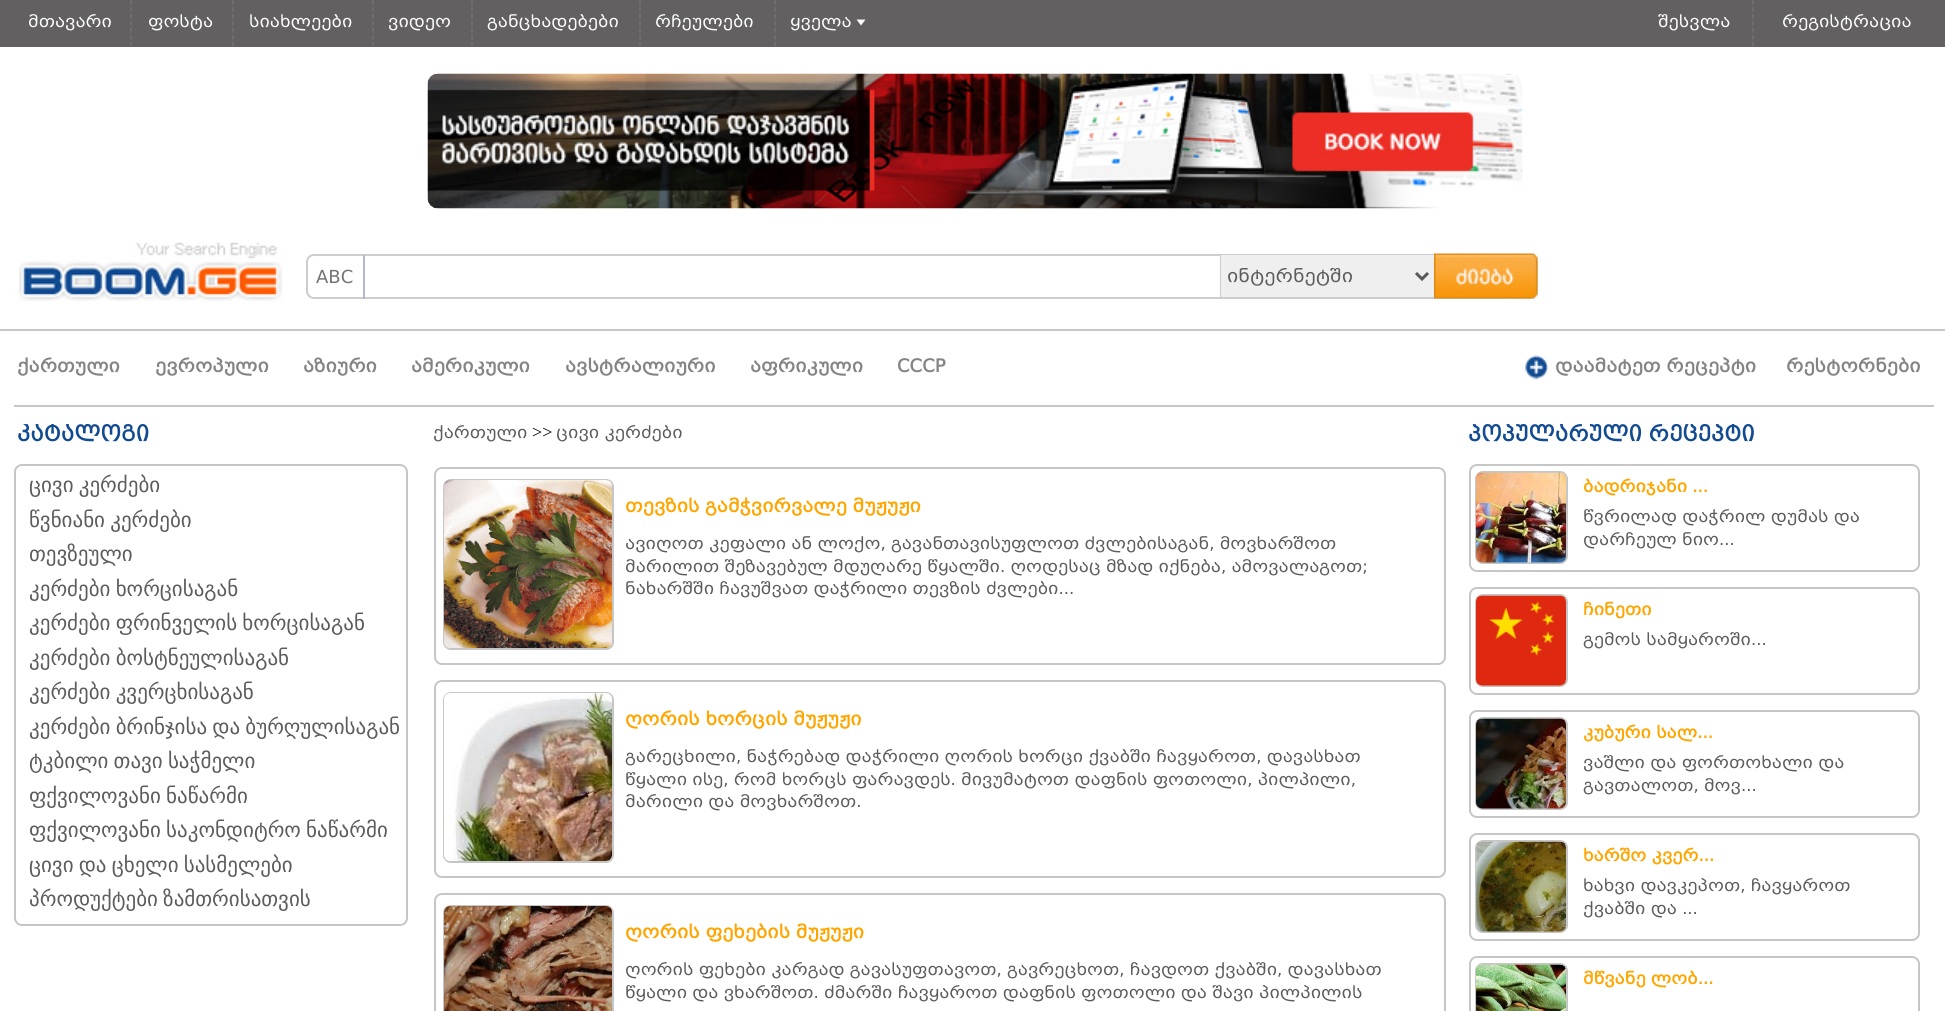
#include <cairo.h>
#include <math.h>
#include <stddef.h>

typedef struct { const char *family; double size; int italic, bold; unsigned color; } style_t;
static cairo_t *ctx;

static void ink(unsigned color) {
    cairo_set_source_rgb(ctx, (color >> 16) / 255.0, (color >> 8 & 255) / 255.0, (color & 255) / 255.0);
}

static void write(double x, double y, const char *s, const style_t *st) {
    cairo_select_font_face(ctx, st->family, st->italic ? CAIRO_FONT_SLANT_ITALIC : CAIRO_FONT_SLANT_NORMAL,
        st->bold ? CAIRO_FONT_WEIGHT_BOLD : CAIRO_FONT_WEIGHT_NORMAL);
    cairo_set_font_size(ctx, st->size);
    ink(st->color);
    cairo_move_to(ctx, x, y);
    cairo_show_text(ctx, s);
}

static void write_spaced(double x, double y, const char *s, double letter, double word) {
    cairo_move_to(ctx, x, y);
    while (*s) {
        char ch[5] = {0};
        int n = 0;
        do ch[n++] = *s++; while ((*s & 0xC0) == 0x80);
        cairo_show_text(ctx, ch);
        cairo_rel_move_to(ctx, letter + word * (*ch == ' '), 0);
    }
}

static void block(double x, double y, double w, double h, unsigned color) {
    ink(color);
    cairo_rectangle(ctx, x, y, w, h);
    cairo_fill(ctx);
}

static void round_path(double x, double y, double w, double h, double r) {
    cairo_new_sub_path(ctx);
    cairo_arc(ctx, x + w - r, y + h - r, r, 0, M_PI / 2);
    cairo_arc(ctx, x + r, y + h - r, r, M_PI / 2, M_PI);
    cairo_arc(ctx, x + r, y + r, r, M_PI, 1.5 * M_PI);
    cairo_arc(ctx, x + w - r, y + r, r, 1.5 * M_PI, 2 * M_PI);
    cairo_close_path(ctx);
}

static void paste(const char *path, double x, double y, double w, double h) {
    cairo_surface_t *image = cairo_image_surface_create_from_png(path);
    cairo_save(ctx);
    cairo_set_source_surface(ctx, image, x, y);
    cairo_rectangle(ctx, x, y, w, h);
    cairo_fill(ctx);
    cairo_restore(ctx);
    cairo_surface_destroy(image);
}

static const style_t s1 = {"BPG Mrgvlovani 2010", 16.5, 0, 0, 0xfefefe};
static const style_t s2 = {"BPG Mrgvlovani 2010", 18, 0, 0, 0x747474};
static const style_t s3 = {"BPG Mrgvlovani 2010", 18, 0, 0, 0x5c5c5c};
static const style_t s4 = {"BPG Mrgvlovani 2010", 18, 0, 1, 0x848484};
static const style_t s5 = {"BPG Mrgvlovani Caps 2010", 21, 0, 1, 0x124b92};
static const style_t s6 = {"DejaVu Sans", 21, 0, 0, 0x5c5c5c};
static const style_t s7 = {"BPG Mrgvlovani 2010", 16.5, 0, 0, 0x5c5c5c};
static const style_t s8 = {"Liberation Serif", 18, 0, 0, 0x000000};
static const style_t s9 = {"BPG Mrgvlovani 2010", 18, 0, 1, 0xffa500};
static const style_t s10 = {"BPG Mrgvlovani 2010", 16.5, 0, 1, 0xffa500};

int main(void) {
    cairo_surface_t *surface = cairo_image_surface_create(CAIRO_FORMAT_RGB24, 1945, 1011);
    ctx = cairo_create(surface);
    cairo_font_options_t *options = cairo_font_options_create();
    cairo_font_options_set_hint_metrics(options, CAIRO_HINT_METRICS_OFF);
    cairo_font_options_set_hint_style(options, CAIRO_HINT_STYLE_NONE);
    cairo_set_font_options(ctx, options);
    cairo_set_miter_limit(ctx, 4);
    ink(0xffffff);
    cairo_paint(ctx);
    block(0, 0, 1945, 47, 0x626061);
    cairo_new_path(ctx);
    cairo_move_to(ctx, 131, 0);
    cairo_line_to(ctx, 131, 46.5);
    ink(0x727071);
    cairo_set_line_width(ctx, 1.5);
    cairo_set_dash(ctx, (double[]){4.5, 2.5}, 2, 0);
    cairo_stroke(ctx);
    write(28, 27, "მთავარი", &s1);
    cairo_new_path(ctx);
    cairo_move_to(ctx, 233, 0);
    cairo_line_to(ctx, 233, 46.5);
    ink(0x727071);
    cairo_stroke(ctx);
    write(148, 27, "ფოსტა", &s1);
    cairo_new_path(ctx);
    cairo_move_to(ctx, 373, 0);
    cairo_line_to(ctx, 373, 46.5);
    ink(0x727071);
    cairo_stroke(ctx);
    write(249, 27, "სიახლეები", &s1);
    cairo_new_path(ctx);
    cairo_move_to(ctx, 472, 0);
    cairo_line_to(ctx, 472, 46.5);
    ink(0x727071);
    cairo_stroke(ctx);
    write(388, 27, "ვიდეო", &s1);
    cairo_new_path(ctx);
    cairo_move_to(ctx, 640, 0);
    cairo_line_to(ctx, 640, 46.5);
    ink(0x727071);
    cairo_stroke(ctx);
    write(487, 27, "განცხადებები", &s1);
    cairo_new_path(ctx);
    cairo_move_to(ctx, 775, 0);
    cairo_line_to(ctx, 775, 46.5);
    ink(0x727071);
    cairo_stroke(ctx);
    write(655, 27, "რჩეულები", &s1);
    write(790, 27, "ყველა", &s1);
    cairo_new_path(ctx);
    cairo_move_to(ctx, 856.5, 19.5);
    cairo_line_to(ctx, 865.5, 19.5);
    cairo_line_to(ctx, 861, 25.5);
    cairo_close_path(ctx);
    cairo_fill(ctx);
    cairo_new_path(ctx);
    cairo_move_to(ctx, 1753, 0);
    cairo_line_to(ctx, 1753, 46.5);
    ink(0x727071);
    cairo_stroke(ctx);
    write(1658, 27, "შესვლა", &s1);
    write(1782, 27, "რეგისტრაცია", &s1);
    paste("pic1.png", 427, 73, 1096, 136);
    paste("pic2.png", 15, 242, 268, 59);
    round_path(307, 255, 1230, 43, 7);
    ink(0xcdcdcd);
    cairo_set_line_width(ctx, 2);
    cairo_set_dash(ctx, NULL, 0, 0);
    cairo_stroke(ctx);
    block(363, 255, 2, 44, 0xb5b8c8);
    write(316, 283, "ABC", &s2);
    block(1220, 255, 1, 42, 0xcdcdcd);
    block(1221, 255, 213, 42, 0xefefef);
    cairo_new_path(ctx);
    cairo_move_to(ctx, 1416, 273);
    cairo_line_to(ctx, 1422, 279);
    cairo_line_to(ctx, 1428, 273);
    ink(0x595959);
    cairo_set_line_width(ctx, 3);
    cairo_stroke(ctx);
    write(1227, 282, "ინტერნეტში", &s3);
    paste("pic3.png", 1434, 253, 104, 46);
    block(0, 329, 1945, 2, 0xc6c6c6);
    block(14, 405, 1920, 2, 0xc6c6c6);
    write(17, 372, "ქართული", &s4);
    write(155, 372, "ევროპული", &s4);
    write(303, 372, "აზიური", &s4);
    write(411, 372, "ამერიკული", &s4);
    write(565, 372, "ავსტრალიური", &s4);
    write(750, 372, "აფრიკული", &s4);
    write(897, 372, "СССР", &s4);
    paste("pic4.png", 1525, 355, 23, 25);
    write(1555, 372, "დაამატეთ რეცეპტი", &s4);
    write(1786, 372, "რესტორნები", &s4);
    write(17, 441, "კატალოგი", &s5);
    round_path(15, 465, 392, 460, 7);
    ink(0xc6c6c6);
    cairo_set_line_width(ctx, 2);
    cairo_stroke(ctx);
    cairo_select_font_face(ctx, "DejaVu Sans", CAIRO_FONT_SLANT_NORMAL, CAIRO_FONT_WEIGHT_NORMAL);
    ink(0x5c5c5c);
    write_spaced(29, 492, "ცივი კერძები", 0, -1.5);
    write_spaced(29, 527, "წვნიანი კერძები", 0, -1.5);
    write(29, 561, "თევზეული", &s6);
    write_spaced(29, 596, "კერძები ხორცისაგან", 0, -1.5);
    write_spaced(29, 630, "კერძები ფრინველის ხორცისაგან", 0, -1.5);
    write_spaced(29, 665, "კერძები ბოსტნეულისაგან", 0, -1.5);
    write_spaced(29, 699, "კერძები კვერცხისაგან", 0, -1.5);
    write_spaced(29, 734, "კერძები ბრინჯისა და ბურღულისაგან", 0, -1.5);
    write_spaced(29, 768, "ტკბილი თავი საჭმელი", 0, -1.5);
    write_spaced(29, 803, "ფქვილოვანი ნაწარმი", 0, -1.5);
    write_spaced(29, 837, "ფქვილოვანი საკონდიტრო ნაწარმი", 0, -1.5);
    write_spaced(29, 872, "ცივი და ცხელი სასმელები", 0, -1.5);
    write_spaced(29, 906, "პროდუქტები ზამთრისათვის", 0, -1.5);
    write(433, 438, "ქართული", &s7);
    write(532, 438, ">>", &s8);
    write(556, 438, "ცივი კერძები", &s7);
    round_path(435, 468, 1010, 196, 7);
    ink(0xc6c6c6);
    cairo_stroke(ctx);
    round_path(444, 480, 169, 169, 7);
    cairo_stroke(ctx);
    paste("pic5.png", 444, 480, 168, 168);
    write(625, 512, "თევზის გამჭვირვალე მუჟუჟი", &s9);
    write(625, 549, "ავიღოთ კეფალი ან ლოქო, გავანთავისუფლოთ ძვლებისაგან, მოვხარშოთ", &s7);
    write(625, 572, "მარილით შეზავებულ მდუღარე წყალში. ღოდესაც მზად იქნება, ამოვალაგოთ;", &s7);
    write(625, 594, "ნახარშში ჩავუშვათ დაჭრილი თევზის ძვლები...", &s7);
    round_path(435, 681, 1010, 196, 7);
    ink(0xc6c6c6);
    cairo_stroke(ctx);
    round_path(444, 693, 169, 169, 7);
    cairo_stroke(ctx);
    paste("pic6.png", 444, 693, 168, 168);
    write(625, 725, "ღორის ხორცის მუჟუჟი", &s9);
    write(625, 762, "გარეცხილი, ნაჭრებად დაჭრილი ღორის ხორცი ქვაბში ჩავყაროთ, დავასხათ", &s7);
    write(625, 785, "წყალი ისე, რომ ხორცს ფარავდეს. მივუმატოთ დაფნის ფოთოლი, პილპილი,", &s7);
    write(625, 807, "მარილი და მოვხარშოთ.", &s7);
    round_path(435, 894, 1010, 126, 7);
    ink(0xc6c6c6);
    cairo_stroke(ctx);
    round_path(444, 906, 169, 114, 7);
    cairo_stroke(ctx);
    paste("pic7.png", 444, 906, 168, 105);
    write(625, 938, "ღორის ფეხების მუჟუჟი", &s9);
    write(625, 975, "ღორის ფეხები კარგად გავასუფთავოთ, გავრეცხოთ, ჩავდოთ ქვაბში, დავასხათ", &s7);
    write(625, 998, "წყალი და ვხარშოთ. ძმარში ჩავყაროთ დაფნის ფოთოლი და შავი პილპილის", &s7);
    write(1468, 441, "პოპულარული რეცეპტი", &s5);
    round_path(1470, 465, 449, 106, 7);
    ink(0xc6c6c6);
    cairo_stroke(ctx);
    round_path(1476, 472, 91, 91, 7);
    cairo_stroke(ctx);
    paste("pic8.png", 1476, 472, 90, 91);
    write(1583, 492, "ბადრიჯანი ...", &s10);
    write(1583, 522, "წვრილად დაჭრილ დუმას და", &s7);
    write(1583, 545, "დარჩეულ ნიო...", &s7);
    round_path(1470, 588, 449, 106, 7);
    ink(0xc6c6c6);
    cairo_stroke(ctx);
    round_path(1476, 595, 91, 91, 7);
    cairo_stroke(ctx);
    paste("pic9.png", 1476, 595, 90, 91);
    write(1583, 615, "ჩინეთი", &s10);
    write(1583, 645, "გემოს სამყაროში...", &s7);
    round_path(1470, 711, 449, 106, 7);
    ink(0xc6c6c6);
    cairo_stroke(ctx);
    round_path(1476, 718, 91, 91, 7);
    cairo_stroke(ctx);
    paste("pic10.png", 1476, 718, 90, 91);
    write(1583, 738, "კუბური სალ...", &s10);
    write(1583, 768, "ვაშლი და ფორთოხალი და", &s7);
    write(1583, 791, "გავთალოთ, მოვ...", &s7);
    round_path(1470, 834, 449, 106, 7);
    ink(0xc6c6c6);
    cairo_stroke(ctx);
    round_path(1476, 841, 91, 91, 7);
    cairo_stroke(ctx);
    paste("pic11.png", 1476, 841, 90, 91);
    write(1583, 861, "ხარშო კვერ...", &s10);
    write(1583, 891, "ხახვი დავკეპოთ, ჩავყაროთ", &s7);
    write(1583, 914, "ქვაბში და ...", &s7);
    round_path(1470, 957, 449, 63, 7);
    ink(0xc6c6c6);
    cairo_stroke(ctx);
    round_path(1476, 964, 91, 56, 7);
    cairo_stroke(ctx);
    paste("pic12.png", 1476, 964, 90, 47);
    write(1583, 984, "მწვანე ლობ...", &s10);
    cairo_surface_write_to_png(surface, "screenshot.png");
    cairo_font_options_destroy(options);
    cairo_destroy(ctx);
    cairo_surface_destroy(surface);
    return 0;
}
